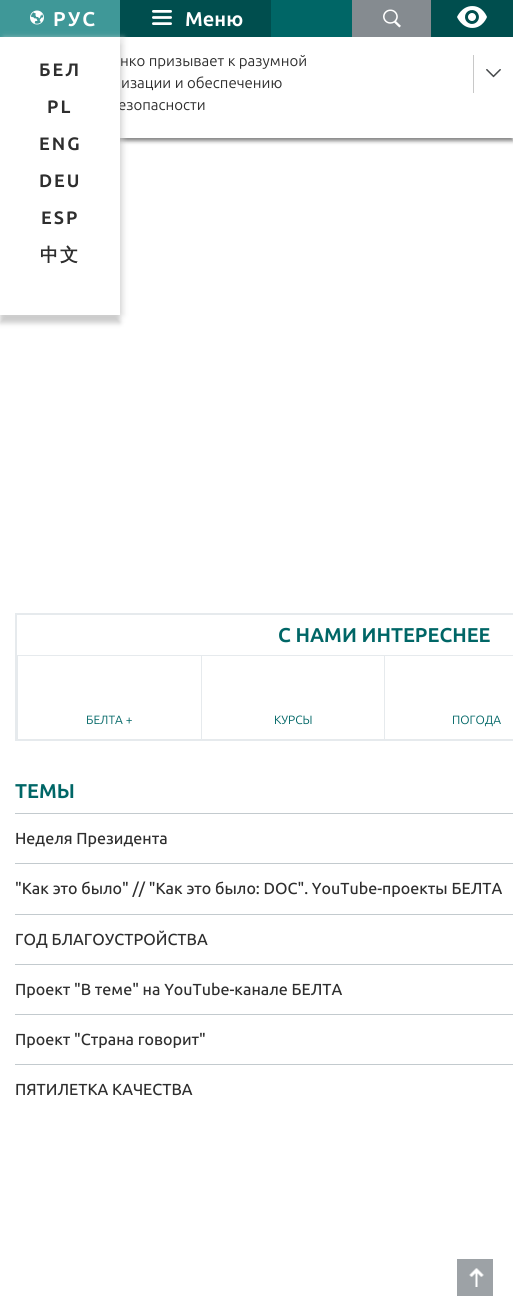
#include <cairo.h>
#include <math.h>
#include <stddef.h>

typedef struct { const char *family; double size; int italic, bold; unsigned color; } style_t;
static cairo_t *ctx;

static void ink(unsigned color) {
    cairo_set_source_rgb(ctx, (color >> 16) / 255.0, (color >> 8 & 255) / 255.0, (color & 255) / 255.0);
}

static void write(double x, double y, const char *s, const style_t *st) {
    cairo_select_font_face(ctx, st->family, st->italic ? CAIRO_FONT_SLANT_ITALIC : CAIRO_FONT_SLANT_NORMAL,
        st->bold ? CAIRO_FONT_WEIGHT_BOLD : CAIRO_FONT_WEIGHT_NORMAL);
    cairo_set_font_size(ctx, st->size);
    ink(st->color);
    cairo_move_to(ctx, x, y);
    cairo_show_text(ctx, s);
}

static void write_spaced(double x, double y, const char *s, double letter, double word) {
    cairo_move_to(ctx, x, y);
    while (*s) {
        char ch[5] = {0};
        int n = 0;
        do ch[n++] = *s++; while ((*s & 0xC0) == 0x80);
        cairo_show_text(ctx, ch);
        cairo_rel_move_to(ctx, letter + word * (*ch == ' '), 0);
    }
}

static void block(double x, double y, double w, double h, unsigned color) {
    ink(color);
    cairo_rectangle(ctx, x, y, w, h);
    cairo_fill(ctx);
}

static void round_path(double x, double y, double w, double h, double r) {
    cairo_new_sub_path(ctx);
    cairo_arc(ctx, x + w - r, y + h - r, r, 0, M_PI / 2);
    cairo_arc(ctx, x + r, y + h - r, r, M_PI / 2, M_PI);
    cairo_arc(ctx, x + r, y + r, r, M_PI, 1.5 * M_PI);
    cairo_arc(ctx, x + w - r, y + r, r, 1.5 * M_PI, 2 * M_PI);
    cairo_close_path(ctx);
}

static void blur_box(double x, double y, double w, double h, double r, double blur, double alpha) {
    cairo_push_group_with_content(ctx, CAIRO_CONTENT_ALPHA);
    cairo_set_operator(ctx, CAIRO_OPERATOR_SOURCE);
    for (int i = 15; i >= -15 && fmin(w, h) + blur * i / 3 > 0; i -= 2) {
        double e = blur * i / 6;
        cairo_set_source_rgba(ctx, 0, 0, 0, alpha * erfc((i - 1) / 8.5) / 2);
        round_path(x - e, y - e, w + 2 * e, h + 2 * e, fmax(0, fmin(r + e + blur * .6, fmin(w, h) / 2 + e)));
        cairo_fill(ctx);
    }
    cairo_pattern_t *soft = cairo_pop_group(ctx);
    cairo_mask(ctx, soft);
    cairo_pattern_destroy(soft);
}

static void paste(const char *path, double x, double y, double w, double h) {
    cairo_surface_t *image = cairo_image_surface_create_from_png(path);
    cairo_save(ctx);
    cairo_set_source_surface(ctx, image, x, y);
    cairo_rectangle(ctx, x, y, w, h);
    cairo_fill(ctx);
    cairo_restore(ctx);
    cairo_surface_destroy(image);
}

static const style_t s1 = {"Ubuntu", 15, 0, 0, 0x2e2e2e};
static const style_t s2 = {"Ubuntu", 20, 0, 1, 0xffffff};
static const style_t s3 = {"Ubuntu", 20, 0, 1, 0x006666};
static const style_t s4 = {"Ubuntu", 12, 0, 0, 0x006666};
static const style_t s5 = {"Ubuntu Medium", 16, 0, 0, 0x2e2e2e};

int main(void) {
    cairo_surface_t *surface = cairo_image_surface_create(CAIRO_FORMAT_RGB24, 513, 1296);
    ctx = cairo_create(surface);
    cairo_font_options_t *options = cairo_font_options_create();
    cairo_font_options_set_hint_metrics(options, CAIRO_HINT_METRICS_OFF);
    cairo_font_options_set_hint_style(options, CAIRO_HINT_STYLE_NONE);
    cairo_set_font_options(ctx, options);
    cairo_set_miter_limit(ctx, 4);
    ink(0xffffff);
    cairo_paint(ctx);
    ink(0x646464);
    blur_box(0, 40, 513, 101, 0, 2, 0.8);
    block(271, 0, 81, 37, 0x006666);
    block(0, 0, 120, 37, 0x3f9898);
    paste("pic1.png", 30, 10, 14, 15);
    cairo_select_font_face(ctx, "Ubuntu", CAIRO_FONT_SLANT_NORMAL, CAIRO_FONT_WEIGHT_BOLD);
    cairo_set_font_size(ctx, 20);
    ink(0xffffff);
    write_spaced(53, 26, "РУС", 2, 0);
    block(120, 0, 151, 37, 0x004e4e);
    block(120, 37, 393, 101, 0xffffff);
    ink(0x989898);
    blur_box(0, 45, 120, 278, 0, 2.5, 0.5);
    ink(0xd4d4d4);
    blur_box(4, 37, 120, 278, 0, 2.5, 0.5);
    write(118, 110, "езопасности", &s1);
    block(0, 37, 120, 278, 0xffffff);
    cairo_select_font_face(ctx, "Ubuntu", CAIRO_FONT_SLANT_NORMAL, CAIRO_FONT_WEIGHT_BOLD);
    cairo_set_font_size(ctx, 18);
    ink(0x2e2e2e);
    write_spaced(39, 76, "БЕЛ", 2, 0);
    write_spaced(47, 113, "PL", 2, 0);
    write_spaced(39, 150, "ENG", 2, 0);
    write_spaced(39, 187, "DEU", 2, 0);
    write_spaced(41, 224, "ESP", 2, 0);
    cairo_select_font_face(ctx, "WenQuanYi Zen Hei", CAIRO_FONT_SLANT_NORMAL, CAIRO_FONT_WEIGHT_BOLD);
    write_spaced(40, 261, "中文", 2, 0);
    paste("pic2.png", 152, 10, 20, 15);
    write(185, 26, "Меню", &s2);
    block(352, 0, 79, 37, 0x858b90);
    paste("pic3.png", 383, 9, 18, 19);
    block(431, 0, 82, 37, 0x004e4e);
    paste("pic4.png", 457, 6, 30, 22);
    write(120, 66, "нко призывает к разумной", &s1);
    write(121, 88, "изации и обеспечению", &s1);
    paste("pic5.png", 486, 69, 15, 9);
    block(473, 55, 1, 38, 0xc8c8c8);
    cairo_rectangle(ctx, 16, 614, 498, 126);
    ink(0xe6eaed);
    cairo_stroke(ctx);
    write(278, 642, "С НАМИ ИНТЕРЕСНЕЕ", &s3);
    block(17, 655, 496, 1, 0xe6eaed);
    block(17, 655, 1, 84, 0xe6eaed);
    write(86, 724, "БЕЛТА +", &s4);
    block(201, 655, 1, 84, 0xe6eaed);
    write(274, 724, "КУРСЫ", &s4);
    block(384, 655, 1, 84, 0xe6eaed);
    write(452, 724, "ПОГОДА", &s4);
    write(15, 798, "ТЕМЫ", &s3);
    block(15, 813, 498, 1, 0xc3cace);
    write(15, 844, "Неделя Президента", &s5);
    block(15, 863, 498, 1, 0xc3cace);
    write(15, 894, "\"Как это было\" // \"Как это было: DOC\". YouTube-проекты БЕЛТА", &s5);
    block(15, 914, 498, 1, 0xc3cace);
    write(15, 945, "ГОД БЛАГОУСТРОЙСТВА", &s5);
    block(15, 964, 498, 1, 0xc3cace);
    write(15, 995, "Проект \"В теме\" на YouTube-канале БЕЛТА", &s5);
    block(15, 1014, 498, 1, 0xc3cace);
    write(15, 1045, "Проект \"Страна говорит\"", &s5);
    block(15, 1064, 498, 1, 0xc3cace);
    write(15, 1095, "ПЯТИЛЕТКА КАЧЕСТВА", &s5);
    paste("pic6.png", 457, 1259, 36, 37);
    cairo_surface_write_to_png(surface, "screenshot.png");
    cairo_font_options_destroy(options);
    cairo_destroy(ctx);
    cairo_surface_destroy(surface);
    return 0;
}
